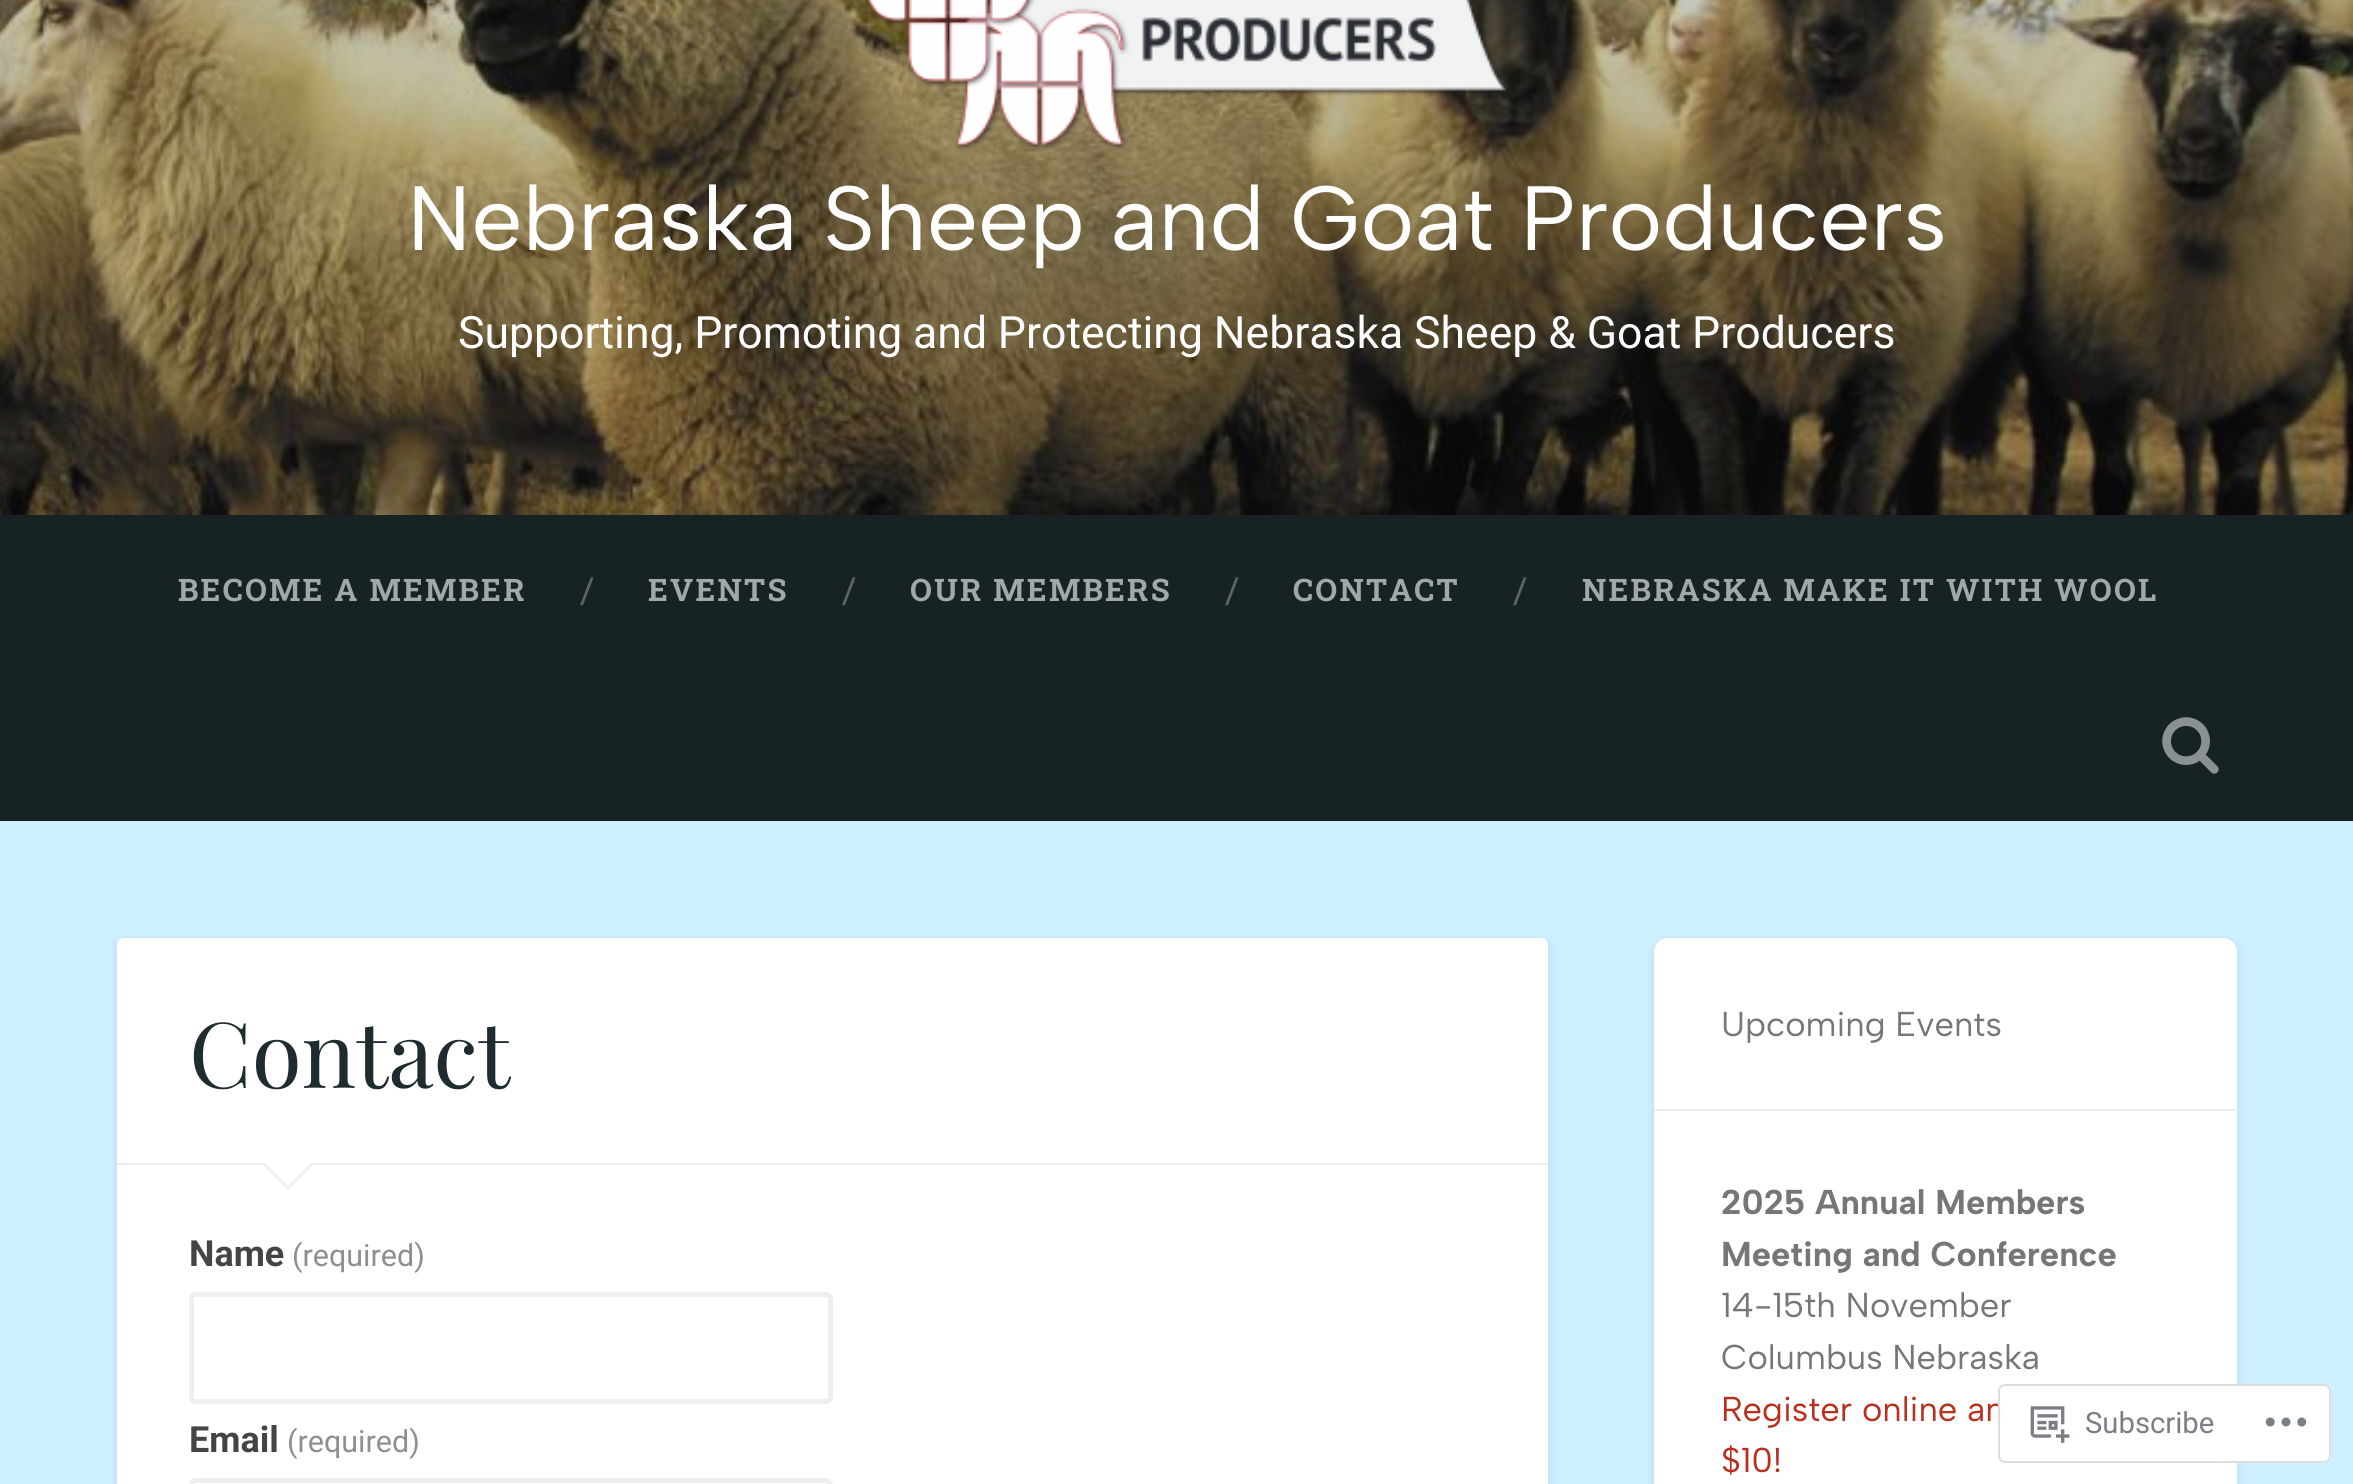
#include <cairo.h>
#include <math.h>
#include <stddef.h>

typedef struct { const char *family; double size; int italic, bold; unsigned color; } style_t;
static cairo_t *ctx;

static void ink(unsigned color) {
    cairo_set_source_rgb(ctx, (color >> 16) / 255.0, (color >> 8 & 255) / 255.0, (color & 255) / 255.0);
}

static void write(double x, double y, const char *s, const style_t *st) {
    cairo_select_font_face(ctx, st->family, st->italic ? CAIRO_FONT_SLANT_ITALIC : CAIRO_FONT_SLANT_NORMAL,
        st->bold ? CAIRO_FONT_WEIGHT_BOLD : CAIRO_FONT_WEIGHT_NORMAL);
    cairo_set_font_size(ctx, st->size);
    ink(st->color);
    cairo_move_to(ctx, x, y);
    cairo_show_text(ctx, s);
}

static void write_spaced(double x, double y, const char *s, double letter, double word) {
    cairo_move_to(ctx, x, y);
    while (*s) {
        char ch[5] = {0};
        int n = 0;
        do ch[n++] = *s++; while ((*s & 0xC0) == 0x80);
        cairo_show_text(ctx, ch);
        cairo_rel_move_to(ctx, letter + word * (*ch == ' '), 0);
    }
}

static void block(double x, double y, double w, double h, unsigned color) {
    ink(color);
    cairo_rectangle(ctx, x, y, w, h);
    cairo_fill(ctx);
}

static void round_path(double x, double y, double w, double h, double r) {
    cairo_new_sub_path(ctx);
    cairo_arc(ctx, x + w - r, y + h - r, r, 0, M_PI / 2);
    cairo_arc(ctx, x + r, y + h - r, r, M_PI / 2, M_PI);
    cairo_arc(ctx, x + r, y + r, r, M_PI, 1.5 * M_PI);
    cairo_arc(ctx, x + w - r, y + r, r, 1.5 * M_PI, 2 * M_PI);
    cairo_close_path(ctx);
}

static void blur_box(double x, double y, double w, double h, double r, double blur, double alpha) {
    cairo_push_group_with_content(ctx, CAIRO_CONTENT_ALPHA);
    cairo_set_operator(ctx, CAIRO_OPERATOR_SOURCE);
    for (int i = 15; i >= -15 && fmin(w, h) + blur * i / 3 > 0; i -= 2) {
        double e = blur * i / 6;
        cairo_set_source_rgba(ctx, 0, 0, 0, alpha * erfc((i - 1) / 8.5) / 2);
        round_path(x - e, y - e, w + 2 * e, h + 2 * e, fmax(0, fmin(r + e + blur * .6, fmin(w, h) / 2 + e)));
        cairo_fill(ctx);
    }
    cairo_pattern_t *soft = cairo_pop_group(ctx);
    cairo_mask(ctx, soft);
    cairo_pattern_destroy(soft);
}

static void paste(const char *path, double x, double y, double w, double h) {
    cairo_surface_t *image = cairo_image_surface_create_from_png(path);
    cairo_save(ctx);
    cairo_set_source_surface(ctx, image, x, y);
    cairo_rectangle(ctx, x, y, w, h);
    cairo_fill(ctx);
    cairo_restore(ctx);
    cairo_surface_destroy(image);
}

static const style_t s1 = {"Albert Sans", 91.1, 0, 0, 0xffffff};
static const style_t s2 = {"Roboto Slab", 36, 0, 0, 0x5d6466};
static const style_t s3 = {"Playfair Display", 91.1, 0, 0, 0x1e2c30};
static const style_t s4 = {"Roboto", 36, 0, 1, 0x444444};
static const style_t s5 = {"Roboto", 30.5, 0, 0, 0x8f8f8f};
static const style_t s6 = {"Albert Sans", 34.5, 0, 0, 0x767676};
static const style_t s7 = {"Albert Sans", 34.5, 0, 1, 0x767676};
static const style_t s8 = {"Albert Sans", 34.5, 0, 0, 0xba2f1d};
static const style_t s9 = {"Roboto", 29.25, 0, 0, 0x7b7f84};

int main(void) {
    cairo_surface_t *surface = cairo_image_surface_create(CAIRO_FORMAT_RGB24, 2353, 1484);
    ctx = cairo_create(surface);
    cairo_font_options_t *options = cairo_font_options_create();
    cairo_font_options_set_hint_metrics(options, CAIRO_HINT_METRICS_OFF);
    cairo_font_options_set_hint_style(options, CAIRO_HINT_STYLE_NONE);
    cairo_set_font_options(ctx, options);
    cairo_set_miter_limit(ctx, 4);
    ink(0xceefff);
    cairo_paint(ctx);
    paste("pic1.png", 0, 0, 2353, 515);
    paste("pic2.png", 865, 0, 642, 151);
    write(407, 250, "Nebraska Sheep and Goat Producers", &s1);
    cairo_select_font_face(ctx, "Roboto", CAIRO_FONT_SLANT_NORMAL, CAIRO_FONT_WEIGHT_NORMAL);
    cairo_set_font_size(ctx, 44.55);
    write_spaced(458, 348, "Supporting, Promoting and Protecting Nebraska Sheep & Goat Producers", 0, -0.25);
    block(0, 515, 2353, 306, 0x172225);
    cairo_select_font_face(ctx, "Roboto Slab", CAIRO_FONT_SLANT_NORMAL, CAIRO_FONT_WEIGHT_BOLD);
    cairo_set_font_size(ctx, 31);
    ink(0xa2a7a8);
    write_spaced(178, 601, "BECOME A MEMBER", 2.25, 0);
    write(580, 603, "/", &s2);
    cairo_select_font_face(ctx, "Roboto Slab", CAIRO_FONT_SLANT_NORMAL, CAIRO_FONT_WEIGHT_BOLD);
    cairo_set_font_size(ctx, 31);
    ink(0xa2a7a8);
    write_spaced(648, 601, "EVENTS", 2.25, 0);
    write(842, 603, "/", &s2);
    cairo_select_font_face(ctx, "Roboto Slab", CAIRO_FONT_SLANT_NORMAL, CAIRO_FONT_WEIGHT_BOLD);
    cairo_set_font_size(ctx, 31);
    ink(0xa2a7a8);
    write_spaced(910, 601, "OUR MEMBERS", 2.25, 0);
    write(1225, 603, "/", &s2);
    cairo_select_font_face(ctx, "Roboto Slab", CAIRO_FONT_SLANT_NORMAL, CAIRO_FONT_WEIGHT_BOLD);
    cairo_set_font_size(ctx, 31);
    ink(0xa2a7a8);
    write_spaced(1293, 601, "CONTACT", 2.25, 0);
    write(1513, 603, "/", &s2);
    cairo_select_font_face(ctx, "Roboto Slab", CAIRO_FONT_SLANT_NORMAL, CAIRO_FONT_WEIGHT_BOLD);
    cairo_set_font_size(ctx, 31);
    ink(0xa2a7a8);
    write_spaced(1582, 601, "NEBRASKA MAKE IT WITH WOOL", 2.25, 0);
    paste("pic3.png", 2162, 717, 57, 57);
    ink(0x000000);
    blur_box(117, 941, 1431, 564, 7, 4.5, 0.1);
    ink(0xffffff);
    round_path(117, 938, 1431, 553, 7);
    cairo_fill(ctx);
    block(117, 1163, 1431, 2, 0xeeeeee);
    write(189, 1088, "Contact", &s3);
    ink(0xeeeeee);
    cairo_new_path(ctx);
    cairo_move_to(ctx, 261, 1163);
    cairo_line_to(ctx, 315, 1163);
    cairo_line_to(ctx, 288, 1190);
    cairo_close_path(ctx);
    cairo_fill(ctx);
    ink(0xffffff);
    cairo_new_path(ctx);
    cairo_move_to(ctx, 263, 1161);
    cairo_line_to(ctx, 313, 1161);
    cairo_line_to(ctx, 288, 1186);
    cairo_close_path(ctx);
    cairo_fill(ctx);
    write(189, 1266, "Name", &s4);
    write(292, 1266, "(required)", &s5);
    round_path(191.5, 1294.5, 639, 107, 4.5);
    ink(0xeeeeee);
    cairo_set_line_width(ctx, 5);
    cairo_stroke(ctx);
    write(189, 1452, "Email", &s4);
    write(287, 1452, "(required)", &s5);
    round_path(191.5, 1480.5, 639, 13, 4.5);
    ink(0xeeeeee);
    cairo_stroke(ctx);
    ink(0x000000);
    blur_box(1654, 941, 583, 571, 14, 4.5, 0.1);
    ink(0xffffff);
    round_path(1654, 938, 583, 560, 14);
    cairo_fill(ctx);
    write(1721, 1036, "Upcoming Events", &s6);
    block(1654, 1109, 583, 2, 0xeeeeee);
    write(1721, 1214, "2025 Annual Members", &s7);
    write(1721, 1266, "Meeting and Conference", &s7);
    write(1721, 1317, "14-15th November", &s6);
    write(1721, 1369, "Columbus Nebraska", &s6);
    write(1721, 1421, "Register online an", &s8);
    write(1721, 1472, "$10!", &s8);
    cairo_set_source_rgba(ctx, 1, 1, 1, 0.98);
    round_path(1998, 1384, 333, 79, 7);
    cairo_fill(ctx);
    round_path(1999, 1385, 331, 77, 6);
    cairo_set_source_rgba(ctx, 0.863, 0.863, 0.871, 0.98);
    cairo_set_line_width(ctx, 2);
    cairo_stroke(ctx);
    paste("pic4.png", 2030, 1406, 40, 37);
    write(2085, 1433, "Subscribe", &s9);
    paste("pic5.png", 2265, 1417, 42, 10);
    cairo_surface_write_to_png(surface, "screenshot.png");
    cairo_font_options_destroy(options);
    cairo_destroy(ctx);
    cairo_surface_destroy(surface);
    return 0;
}
